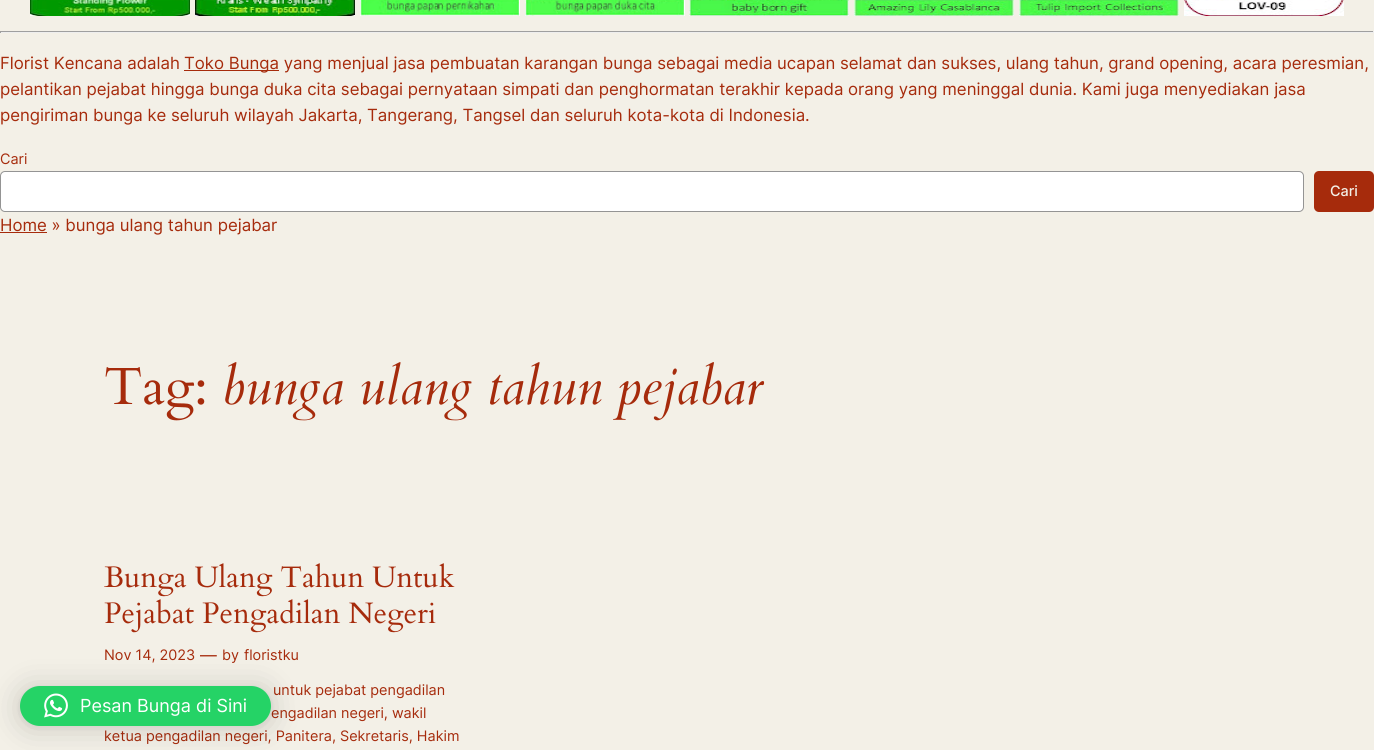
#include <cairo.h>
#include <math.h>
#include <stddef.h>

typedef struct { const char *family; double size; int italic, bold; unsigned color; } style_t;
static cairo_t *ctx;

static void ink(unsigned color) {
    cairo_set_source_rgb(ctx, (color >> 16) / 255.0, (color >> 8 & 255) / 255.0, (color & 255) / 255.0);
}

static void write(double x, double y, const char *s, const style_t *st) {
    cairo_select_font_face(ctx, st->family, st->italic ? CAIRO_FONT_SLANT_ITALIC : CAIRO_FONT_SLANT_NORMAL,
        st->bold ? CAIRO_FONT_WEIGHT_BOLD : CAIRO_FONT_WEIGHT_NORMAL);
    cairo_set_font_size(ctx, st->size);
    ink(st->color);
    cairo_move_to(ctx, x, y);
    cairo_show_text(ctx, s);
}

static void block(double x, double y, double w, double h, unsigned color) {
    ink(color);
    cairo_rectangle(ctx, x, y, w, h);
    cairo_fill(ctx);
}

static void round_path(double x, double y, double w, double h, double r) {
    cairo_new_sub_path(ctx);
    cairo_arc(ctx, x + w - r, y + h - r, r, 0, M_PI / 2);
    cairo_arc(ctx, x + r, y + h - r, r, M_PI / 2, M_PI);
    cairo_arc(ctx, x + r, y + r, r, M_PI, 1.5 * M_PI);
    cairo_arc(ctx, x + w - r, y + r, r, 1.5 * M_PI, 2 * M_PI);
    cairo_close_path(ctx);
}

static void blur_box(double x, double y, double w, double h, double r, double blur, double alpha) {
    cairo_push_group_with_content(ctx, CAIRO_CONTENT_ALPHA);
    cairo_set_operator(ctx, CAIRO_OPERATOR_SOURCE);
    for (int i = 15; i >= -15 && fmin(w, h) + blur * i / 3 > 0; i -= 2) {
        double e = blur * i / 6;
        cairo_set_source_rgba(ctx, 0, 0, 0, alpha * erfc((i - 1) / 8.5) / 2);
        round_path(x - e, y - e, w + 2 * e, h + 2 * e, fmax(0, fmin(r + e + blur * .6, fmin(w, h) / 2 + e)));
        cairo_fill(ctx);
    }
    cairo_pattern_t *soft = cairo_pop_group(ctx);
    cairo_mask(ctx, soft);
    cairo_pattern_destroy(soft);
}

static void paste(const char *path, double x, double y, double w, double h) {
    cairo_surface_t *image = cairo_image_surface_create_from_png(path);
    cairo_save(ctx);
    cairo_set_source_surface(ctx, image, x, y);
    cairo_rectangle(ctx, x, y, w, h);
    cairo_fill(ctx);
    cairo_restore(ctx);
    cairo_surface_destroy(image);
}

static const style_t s1 = {"Inter", 16.8, 0, 0, 0xa62b0c};
static const style_t s2 = {"Inter", 14.4, 0, 0, 0xa62b0c};
static const style_t s3 = {"Inter Medium", 14.4, 0, 0, 0xf3f0e7};
static const style_t s4 = {"Cardo", 52.25, 1, 0, 0xa62b0c};
static const style_t s5 = {"Inter", 18, 0, 0, 0xffffff};

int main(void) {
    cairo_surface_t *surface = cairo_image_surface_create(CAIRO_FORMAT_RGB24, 1374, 750);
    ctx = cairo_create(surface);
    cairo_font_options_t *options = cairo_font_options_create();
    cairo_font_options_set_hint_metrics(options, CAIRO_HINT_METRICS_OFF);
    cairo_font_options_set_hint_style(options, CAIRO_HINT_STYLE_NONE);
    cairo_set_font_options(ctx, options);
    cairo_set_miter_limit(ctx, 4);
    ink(0xf3f0e7);
    cairo_paint(ctx);
    paste("pic1.png", 30, 0, 160, 16);
    paste("pic2.png", 195, 0, 160, 16);
    paste("pic3.png", 360, 0, 160, 16);
    paste("pic4.png", 525, 0, 160, 16);
    paste("pic5.png", 689, 0, 160, 16);
    paste("pic6.png", 854, 0, 160, 16);
    paste("pic7.png", 1019, 0, 160, 16);
    paste("pic8.png", 1184, 0, 160, 16);
    block(0, 31, 1374, 1, 0x9f9f9f);
    block(1373, 31, 1, 2, 0xeeeeee);
    block(0, 32, 1374, 1, 0xeeeeee);
    block(0, 31, 1, 2, 0x9f9f9f);
    write(0, 69, "Florist Kencana adalah", &s1);
    block(184, 70, 95, 1, 0xa62b0c);
    write(184, 69, "Toko Bunga yang menjual jasa pembuatan karangan bunga sebagai media ucapan selamat dan sukses, ulang tahun, grand opening, acara peresmian,", &s1);
    write(0, 95, "pelantikan pejabat hingga bunga duka cita sebagai pernyataan simpati dan penghormatan terakhir kepada orang yang meninggal dunia. Kami juga menyediakan jasa", &s1);
    write(0, 121, "pengiriman bunga ke seluruh wilayah Jakarta, Tangerang, Tangsel dan seluruh kota-kota di Indonesia.", &s1);
    write(0, 164, "Cari", &s2);
    ink(0xffffff);
    round_path(0.5, 171.5, 1303, 40, 4.5);
    cairo_fill_preserve(ctx);
    ink(0x949494);
    cairo_set_line_width(ctx, 1);
    cairo_stroke(ctx);
    ink(0xa62b0c);
    round_path(1314, 171, 60, 41, 5);
    cairo_fill(ctx);
    write(1330, 196, "Cari", &s3);
    block(0, 232, 47, 1, 0xa62b0c);
    write(0, 231, "Home » bunga ulang tahun pejabar", &s1);
    paste("pic9.png", 105, 367, 100, 54);
    write(222, 404, "bunga ulang tahun pejabar", &s4);
    paste("pic10.png", 104, 563, 351, 34);
    paste("pic11.png", 104, 599, 332, 34);
    write(104, 660, "Nov 14, 2023", &s2);
    write(200, 661, "—", &s1);
    write(222, 660, "by", &s2);
    write(244, 660, "floristku", &s2);
    write(273, 695, "untuk pejabat pengadilan", &s2);
    write(271, 718, "engadilan negeri, wakil", &s2);
    write(104, 741, "ketua pengadilan negeri, Panitera, Sekretaris, Hakim", &s2);
    ink(0x000000);
    blur_box(20, 688, 251, 40, 20, 16, 0.16);
    blur_box(20, 687, 251, 40, 20, 3, 0.06);
    ink(0x25d366);
    round_path(20, 686, 251, 40, 20);
    cairo_fill(ctx);
    paste("pic12.png", 44, 693, 24, 25);
    write(80, 712, "Pesan Bunga di Sini", &s5);
    cairo_surface_write_to_png(surface, "screenshot.png");
    cairo_font_options_destroy(options);
    cairo_destroy(ctx);
    cairo_surface_destroy(surface);
    return 0;
}
